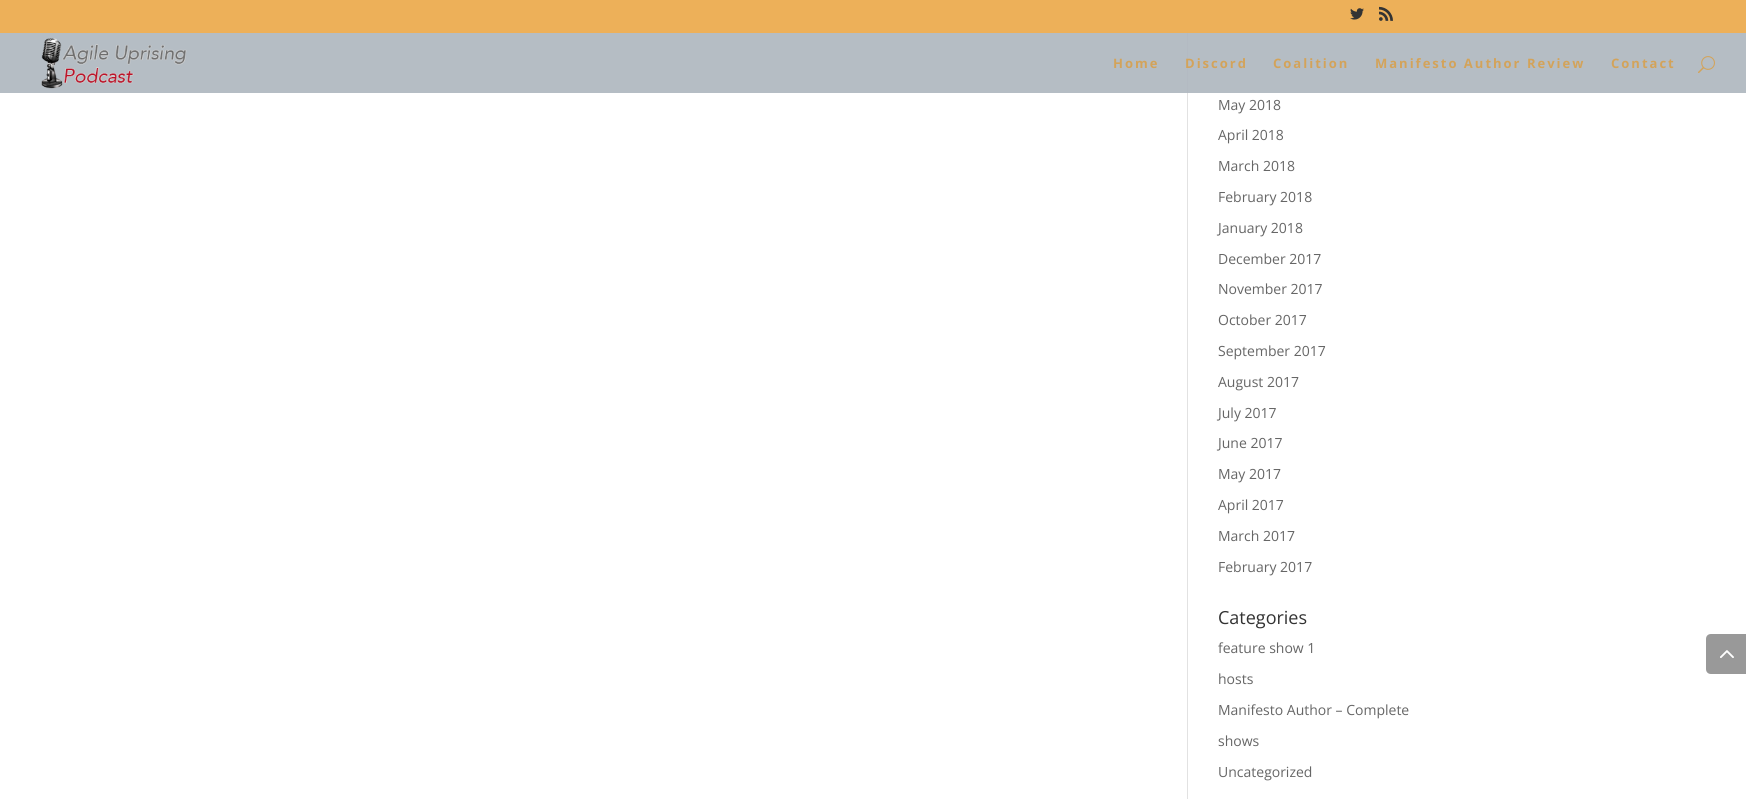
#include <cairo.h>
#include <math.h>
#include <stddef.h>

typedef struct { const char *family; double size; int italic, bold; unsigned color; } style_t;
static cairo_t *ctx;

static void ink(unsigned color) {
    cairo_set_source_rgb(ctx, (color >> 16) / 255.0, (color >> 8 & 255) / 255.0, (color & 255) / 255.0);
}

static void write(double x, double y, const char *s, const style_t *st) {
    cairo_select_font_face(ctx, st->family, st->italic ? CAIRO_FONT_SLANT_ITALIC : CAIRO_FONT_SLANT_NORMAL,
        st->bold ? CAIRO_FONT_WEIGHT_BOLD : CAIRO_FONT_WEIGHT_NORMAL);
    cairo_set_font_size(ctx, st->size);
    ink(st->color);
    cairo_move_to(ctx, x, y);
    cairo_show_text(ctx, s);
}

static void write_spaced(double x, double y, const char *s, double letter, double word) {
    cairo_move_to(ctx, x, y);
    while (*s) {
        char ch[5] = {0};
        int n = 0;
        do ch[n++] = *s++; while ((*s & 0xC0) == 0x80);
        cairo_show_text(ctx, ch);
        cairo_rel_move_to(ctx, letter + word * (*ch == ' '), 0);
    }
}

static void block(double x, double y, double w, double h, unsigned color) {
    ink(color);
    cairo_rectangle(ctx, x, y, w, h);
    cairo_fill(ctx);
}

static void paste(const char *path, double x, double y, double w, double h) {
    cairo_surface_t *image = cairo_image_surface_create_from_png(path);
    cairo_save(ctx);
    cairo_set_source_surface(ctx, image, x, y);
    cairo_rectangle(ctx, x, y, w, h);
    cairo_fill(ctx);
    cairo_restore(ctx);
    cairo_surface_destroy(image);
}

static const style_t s1 = {"Open Sans", 14, 0, 0, 0x666666};
static const style_t s2 = {"Open Sans", 18, 0, 0, 0x333333};

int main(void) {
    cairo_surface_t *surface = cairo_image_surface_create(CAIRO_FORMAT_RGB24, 1746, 799);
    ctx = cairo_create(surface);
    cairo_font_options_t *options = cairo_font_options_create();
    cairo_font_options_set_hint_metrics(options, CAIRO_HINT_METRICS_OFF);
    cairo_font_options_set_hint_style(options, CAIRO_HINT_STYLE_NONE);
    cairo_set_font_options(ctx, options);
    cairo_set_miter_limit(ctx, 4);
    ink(0xffffff);
    cairo_paint(ctx);
    block(0, 0, 1746, 33, 0xedb059);
    paste("pic1.png", 1350, 8, 14, 12);
    paste("pic2.png", 1379, 6, 14, 15);
    block(0, 33, 1746, 60, 0xb5bdc4);
    paste("pic3.png", 41, 38, 146, 51);
    cairo_select_font_face(ctx, "Open Sans", CAIRO_FONT_SLANT_NORMAL, CAIRO_FONT_WEIGHT_BOLD);
    cairo_set_font_size(ctx, 13);
    ink(0xd3a35a);
    write_spaced(1113, 68, "Home", 2, 0);
    block(1187, 33, 1, 60, 0xb3bac2);
    ink(0xd3a35a);
    write_spaced(1185, 68, "Discord", 2, 0);
    write_spaced(1273, 68, "Coalition", 2, 0);
    write_spaced(1375, 68, "Manifesto Author Review", 2, 0);
    write_spaced(1611, 68, "Contact", 2, 0);
    paste("pic4.png", 1698, 56, 17, 17);
    block(1187, 93, 1, 706, 0xe2e2e2);
    write(1218, 110, "May 2018", &s1);
    write(1218, 140, "April 2018", &s1);
    write(1218, 171, "March 2018", &s1);
    write(1218, 202, "February 2018", &s1);
    write(1218, 233, "January 2018", &s1);
    write(1218, 264, "December 2017", &s1);
    write(1218, 294, "November 2017", &s1);
    write(1218, 325, "October 2017", &s1);
    write(1218, 356, "September 2017", &s1);
    write(1218, 387, "August 2017", &s1);
    write(1218, 418, "July 2017", &s1);
    write(1218, 448, "June 2017", &s1);
    write(1218, 479, "May 2017", &s1);
    write(1218, 510, "April 2017", &s1);
    write(1218, 541, "March 2017", &s1);
    write(1218, 572, "February 2017", &s1);
    write(1218, 624, "Categories", &s2);
    write(1218, 653, "feature show 1", &s1);
    write(1218, 684, "hosts", &s1);
    write(1218, 715, "Manifesto Author – Complete", &s1);
    write(1218, 746, "shows", &s1);
    write(1218, 777, "Uncategorized", &s1);
    ink(0x999999);
    cairo_new_path(ctx);
    cairo_move_to(ctx, 1711, 634);
    cairo_line_to(ctx, 1746, 634);
    cairo_line_to(ctx, 1746, 674);
    cairo_line_to(ctx, 1711, 674);
    cairo_curve_to(ctx, 1708, 674, 1706, 672, 1706, 669);
    cairo_line_to(ctx, 1706, 639);
    cairo_curve_to(ctx, 1706, 636, 1708, 634, 1711, 634);
    cairo_close_path(ctx);
    cairo_fill(ctx);
    paste("pic5.png", 1720, 650, 14, 8);
    cairo_surface_write_to_png(surface, "screenshot.png");
    cairo_font_options_destroy(options);
    cairo_destroy(ctx);
    cairo_surface_destroy(surface);
    return 0;
}
